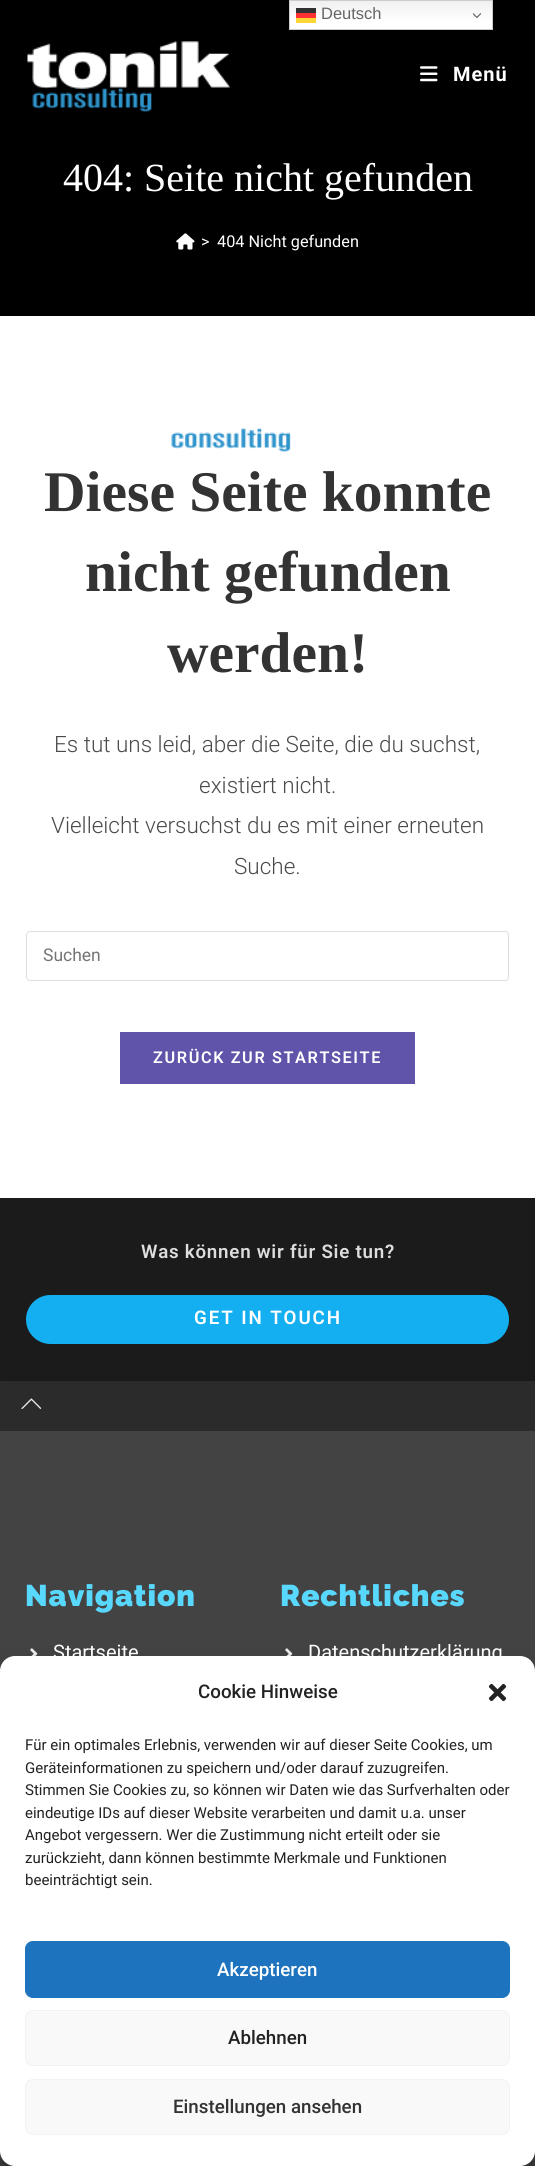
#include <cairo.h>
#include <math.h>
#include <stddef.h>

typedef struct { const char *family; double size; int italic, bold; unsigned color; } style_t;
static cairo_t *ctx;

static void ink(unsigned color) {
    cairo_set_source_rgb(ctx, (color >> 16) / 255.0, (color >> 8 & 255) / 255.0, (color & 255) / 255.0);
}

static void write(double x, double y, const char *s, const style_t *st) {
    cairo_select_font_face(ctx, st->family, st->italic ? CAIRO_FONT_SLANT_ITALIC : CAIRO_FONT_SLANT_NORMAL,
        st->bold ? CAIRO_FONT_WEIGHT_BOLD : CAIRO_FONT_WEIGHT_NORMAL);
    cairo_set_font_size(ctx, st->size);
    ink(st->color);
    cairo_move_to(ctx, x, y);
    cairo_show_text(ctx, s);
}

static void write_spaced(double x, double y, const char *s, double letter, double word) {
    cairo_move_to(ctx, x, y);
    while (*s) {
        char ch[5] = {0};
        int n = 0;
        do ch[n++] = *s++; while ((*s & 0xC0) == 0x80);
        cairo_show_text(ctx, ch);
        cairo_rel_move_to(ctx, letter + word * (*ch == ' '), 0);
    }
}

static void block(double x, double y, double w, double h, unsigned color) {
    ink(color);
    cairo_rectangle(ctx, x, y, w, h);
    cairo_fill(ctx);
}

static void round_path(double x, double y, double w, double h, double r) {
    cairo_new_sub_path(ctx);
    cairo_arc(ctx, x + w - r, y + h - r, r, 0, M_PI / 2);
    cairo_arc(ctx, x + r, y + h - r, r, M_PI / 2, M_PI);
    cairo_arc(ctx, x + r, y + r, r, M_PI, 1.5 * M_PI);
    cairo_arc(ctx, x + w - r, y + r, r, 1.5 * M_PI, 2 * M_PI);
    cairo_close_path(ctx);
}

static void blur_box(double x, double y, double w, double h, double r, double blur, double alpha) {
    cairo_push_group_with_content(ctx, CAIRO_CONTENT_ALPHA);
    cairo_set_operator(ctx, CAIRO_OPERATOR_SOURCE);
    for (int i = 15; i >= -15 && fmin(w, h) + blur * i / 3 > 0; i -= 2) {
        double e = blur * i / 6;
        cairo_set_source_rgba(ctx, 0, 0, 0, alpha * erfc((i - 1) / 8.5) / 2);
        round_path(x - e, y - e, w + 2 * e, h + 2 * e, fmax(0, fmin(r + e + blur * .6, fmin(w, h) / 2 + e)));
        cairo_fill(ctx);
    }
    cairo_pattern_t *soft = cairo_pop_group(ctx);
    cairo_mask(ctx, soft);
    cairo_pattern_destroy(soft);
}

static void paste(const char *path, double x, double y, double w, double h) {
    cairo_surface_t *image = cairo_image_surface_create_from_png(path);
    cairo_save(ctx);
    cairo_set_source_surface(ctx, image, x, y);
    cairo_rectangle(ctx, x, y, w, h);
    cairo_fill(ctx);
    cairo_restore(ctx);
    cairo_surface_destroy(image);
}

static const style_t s1 = {"Liberation Sans", 16.5, 0, 0, 0x666666};
static const style_t s2 = {"Liberation Serif", 40, 0, 0, 0xffffff};
static const style_t s3 = {"Roboto", 16.25, 0, 0, 0xffffff};
static const style_t s4 = {"Liberation Serif", 57.5, 0, 1, 0x333333};
static const style_t s5 = {"Roboto Light", 22.5, 0, 0, 0x4a4a4a};
static const style_t s6 = {"Roboto", 17.5, 0, 0, 0x757575};
static const style_t s7 = {"Roboto", 20, 0, 0, 0xffffff};
static const style_t s8 = {"Roboto Medium", 18.75, 0, 0, 0x222222};
static const style_t s9 = {"Roboto", 15, 0, 0, 0x222222};
static const style_t s10 = {"Roboto Medium", 18.75, 0, 0, 0xffffff};
static const style_t s11 = {"Roboto Medium", 18.75, 0, 0, 0x333333};

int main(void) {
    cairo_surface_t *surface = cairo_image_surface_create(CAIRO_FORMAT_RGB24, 535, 2166);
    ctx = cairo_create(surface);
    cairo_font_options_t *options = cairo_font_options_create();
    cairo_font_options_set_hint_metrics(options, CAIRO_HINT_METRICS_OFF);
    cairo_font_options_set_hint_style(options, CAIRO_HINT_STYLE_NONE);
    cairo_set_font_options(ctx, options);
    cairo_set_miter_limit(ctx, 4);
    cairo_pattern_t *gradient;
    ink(0xffffff);
    cairo_paint(ctx);
    block(0, 0, 535, 316, 0x000000);
    gradient = cairo_pattern_create_linear(391, 0, 391, 30);
    cairo_pattern_add_color_stop_rgba(gradient, 0, 0.937, 0.937, 0.937, 1);
    cairo_pattern_add_color_stop_rgba(gradient, 0.7, 1, 1, 1, 1);
    cairo_set_source(ctx, gradient);
    cairo_pattern_destroy(gradient);
    cairo_rectangle(ctx, 290, 1, 202, 28);
    cairo_fill(ctx);
    gradient = cairo_pattern_create_linear(391, 0, 391, 30);
    cairo_pattern_add_color_stop_rgba(gradient, 0, 0.988, 0.188, 0.188, 1);
    cairo_pattern_add_color_stop_rgba(gradient, 0.7, 1, 0.2, 0.2, 1);
    cairo_set_source(ctx, gradient);
    cairo_pattern_destroy(gradient);
    cairo_rectangle(ctx, 296, 13, 20, 5);
    cairo_fill(ctx);
    gradient = cairo_pattern_create_linear(391, 0, 391, 30);
    cairo_pattern_add_color_stop_rgba(gradient, 0, 0.188, 0.188, 0.188, 1);
    cairo_pattern_add_color_stop_rgba(gradient, 0.7, 0.2, 0.2, 0.2, 1);
    cairo_set_source(ctx, gradient);
    cairo_pattern_destroy(gradient);
    cairo_rectangle(ctx, 296, 8, 20, 5);
    cairo_fill(ctx);
    cairo_rectangle(ctx, 289.5, 0.5, 203, 29);
    ink(0xcccccc);
    cairo_set_line_width(ctx, 1);
    cairo_stroke(ctx);
    write(321, 19, "Deutsch", &s1);
    paste("pic1.png", 473, 13, 8, 6);
    block(296, 18, 20, 5, 0xffd633);
    paste("pic2.png", 27, 41, 204, 71);
    paste("pic3.png", 420, 66, 18, 16);
    cairo_select_font_face(ctx, "Roboto", CAIRO_FONT_SLANT_NORMAL, CAIRO_FONT_WEIGHT_BOLD);
    cairo_set_font_size(ctx, 20);
    ink(0xffffff);
    write_spaced(453, 81, "Menü", 1, 0);
    write(63, 191, "404: Seite nicht gefunden", &s2);
    paste("pic4.png", 176, 233, 19, 17);
    write(201, 247, ">", &s3);
    write(217, 247, "404 Nicht gefunden", &s3);
    paste("pic5.png", 171, 428, 120, 24);
    write(44, 511, "Diese Seite konnte", &s4);
    write(85, 591, "nicht gefunden", &s4);
    write(167, 672, "werden!", &s4);
    write(54, 752, "Es tut uns leid, aber die Seite, die du suchst,", &s5);
    write(199, 793, "existiert nicht.", &s5);
    write(51, 833, "Vielleicht versuchst du es mit einer erneuten", &s5);
    write(234, 874, "Suche.", &s5);
    round_path(26.5, 931.5, 482, 49, 3.5);
    ink(0xdddddd);
    cairo_stroke(ctx);
    write(43, 961, "Suchen", &s6);
    block(120, 1032, 295, 52, 0x5f54a9);
    cairo_select_font_face(ctx, "Roboto SemiBold", CAIRO_FONT_SLANT_NORMAL, CAIRO_FONT_WEIGHT_NORMAL);
    cairo_set_font_size(ctx, 16.25);
    ink(0xffffff);
    write_spaced(153, 1063, "ZURÜCK ZUR STARTSEITE", 1.6, 0);
    block(0, 1198, 535, 183, 0x1b1b1b);
    cairo_set_font_size(ctx, 18.75);
    ink(0xdddddd);
    write_spaced(141, 1258, "Was können wir für Sie tun?", 0.75, 0);
    ink(0x13aff0);
    round_path(26, 1295, 483, 49, 24.5);
    cairo_fill(ctx);
    ink(0xffffff);
    write_spaced(194, 1324, "GET IN TOUCH", 1.9, 0);
    ink(0x000000);
    blur_box(0, 1381, 535, 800, 0, 5, 0.09);
    block(0, 1381, 535, 50, 0x2b2b2b);
    paste("pic6.png", 21, 1398, 21, 11);
    block(0, 1431, 535, 735, 0x434343);
    cairo_select_font_face(ctx, "Raleway Black", CAIRO_FONT_SLANT_NORMAL, CAIRO_FONT_WEIGHT_NORMAL);
    cairo_set_font_size(ctx, 30);
    ink(0x59d8fe);
    write_spaced(25, 1606, "Navigation", 0.9, 0);
    paste("pic7.png", 30, 1648, 8, 8);
    write(53, 1659, "Startseite", &s7);
    cairo_select_font_face(ctx, "Raleway Black", CAIRO_FONT_SLANT_NORMAL, CAIRO_FONT_WEIGHT_NORMAL);
    cairo_set_font_size(ctx, 30);
    ink(0x59d8fe);
    write_spaced(280, 1606, "Rechtliches", 0.9, 0);
    paste("pic7.png", 285, 1648, 8, 8);
    write(308, 1659, "Datenschutzerklärung", &s7);
    ink(0x000000);
    blur_box(0, 1664, 535, 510, 15, 4, 0.23);
    blur_box(0, 1669, 535, 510, 15, 12.5, 0.19);
    ink(0xffffff);
    round_path(0, 1656, 535, 510, 15);
    cairo_fill(ctx);
    write(198, 1698, "Cookie Hinweise", &s8);
    paste("pic8.png", 488, 1683, 19, 19);
    write(25, 1750, "Für ein optimales Erlebnis, verwenden wir auf dieser Seite Cookies, um", &s9);
    write(25, 1773, "Geräteinformationen zu speichern und/oder darauf zuzugreifen.", &s9);
    write(25, 1795, "Stimmen Sie Cookies zu, so können wir Daten wie das Surfverhalten oder", &s9);
    write(25, 1818, "eindeutige IDs auf dieser Website verarbeiten und damit u.a. unser", &s9);
    write(25, 1840, "Angebot vergessern. Wer die Zustimmung nicht erteilt oder sie", &s9);
    write(25, 1863, "zurückzieht, dann können bestimmte Merkmale und Funktionen", &s9);
    write(25, 1885, "beeinträchtigt sein.", &s9);
    ink(0x1e73be);
    round_path(25.5, 1941.5, 484, 56, 7.5);
    cairo_fill_preserve(ctx);
    cairo_stroke(ctx);
    write(217, 1976, "Akzeptieren", &s10);
    ink(0xf9f9f9);
    round_path(25.5, 2010.5, 484, 55, 7.5);
    cairo_fill_preserve(ctx);
    ink(0xf2f2f2);
    cairo_stroke(ctx);
    write(228, 2044, "Ablehnen", &s8);
    ink(0xf9f9f9);
    round_path(25.5, 2079.5, 484, 55, 7.5);
    cairo_fill_preserve(ctx);
    ink(0xf2f2f2);
    cairo_stroke(ctx);
    write(173, 2113, "Einstellungen ansehen", &s11);
    cairo_surface_write_to_png(surface, "screenshot.png");
    cairo_font_options_destroy(options);
    cairo_destroy(ctx);
    cairo_surface_destroy(surface);
    return 0;
}
